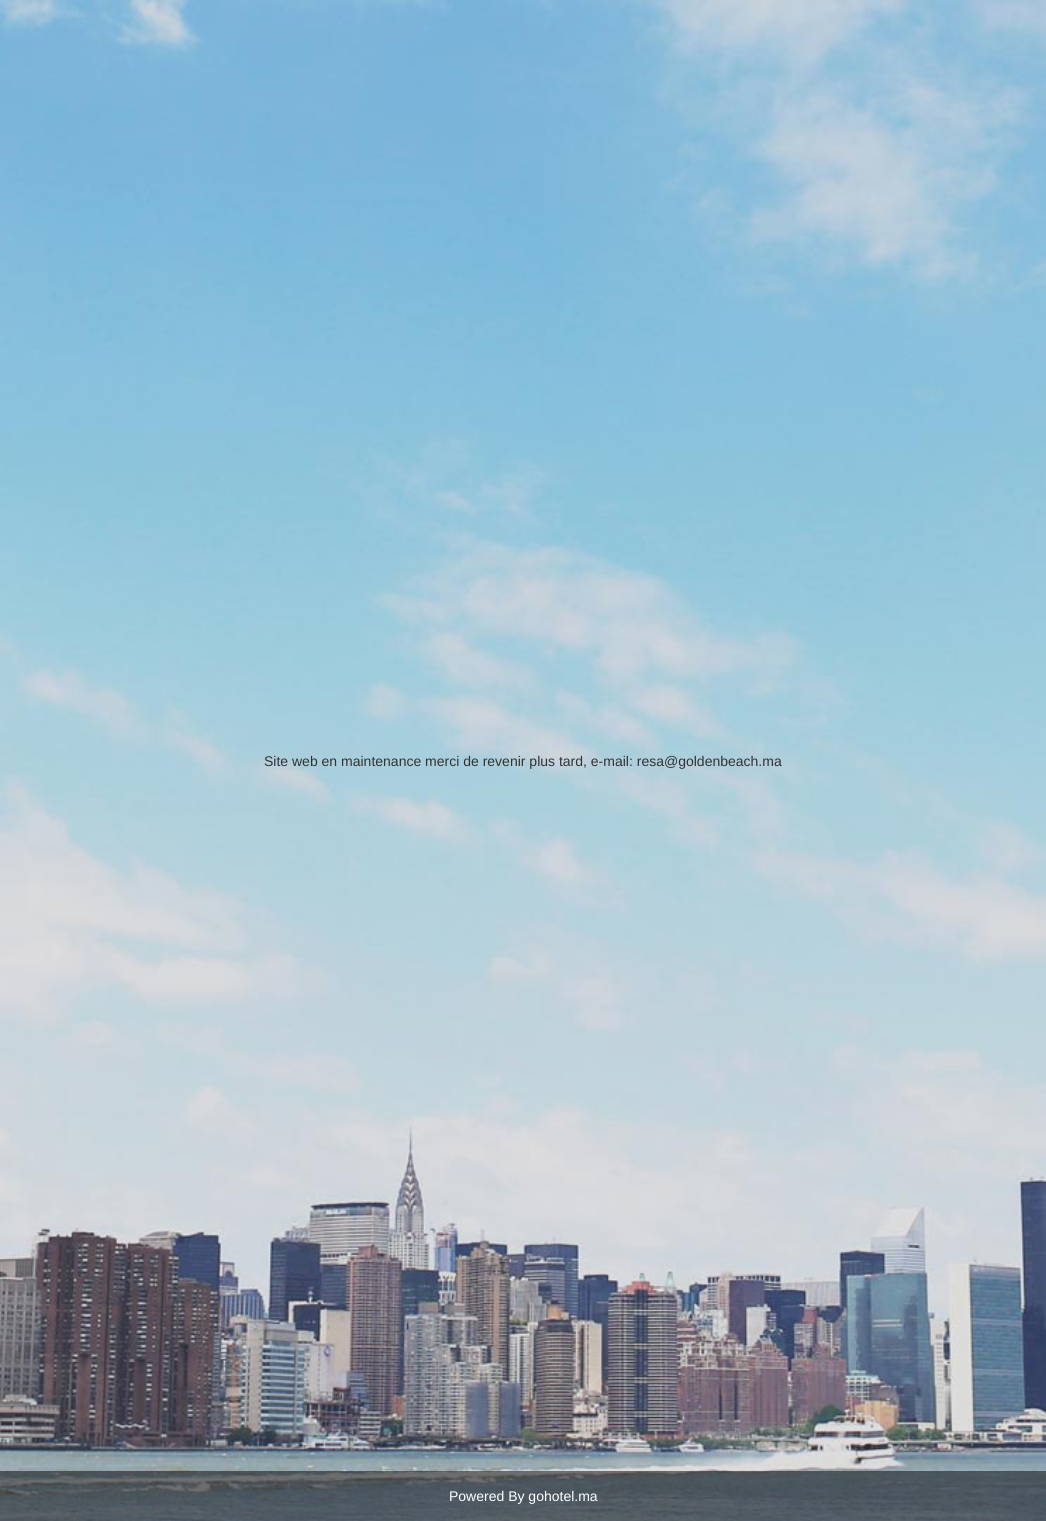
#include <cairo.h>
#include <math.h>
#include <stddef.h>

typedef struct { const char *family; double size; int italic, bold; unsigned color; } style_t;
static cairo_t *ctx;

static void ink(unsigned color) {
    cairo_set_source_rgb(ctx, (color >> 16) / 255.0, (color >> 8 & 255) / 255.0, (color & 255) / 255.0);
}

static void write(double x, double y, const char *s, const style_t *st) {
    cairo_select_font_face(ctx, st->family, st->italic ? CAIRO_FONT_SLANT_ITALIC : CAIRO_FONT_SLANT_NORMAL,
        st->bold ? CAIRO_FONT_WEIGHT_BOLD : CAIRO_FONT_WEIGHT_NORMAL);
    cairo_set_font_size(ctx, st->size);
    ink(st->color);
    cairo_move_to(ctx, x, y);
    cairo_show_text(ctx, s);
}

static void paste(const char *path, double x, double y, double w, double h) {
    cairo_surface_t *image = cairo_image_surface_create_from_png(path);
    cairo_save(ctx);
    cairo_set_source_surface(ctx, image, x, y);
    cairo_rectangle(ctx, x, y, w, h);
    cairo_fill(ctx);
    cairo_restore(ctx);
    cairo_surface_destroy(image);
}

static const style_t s1 = {"Liberation Sans", 14, 0, 0, 0x333333};
static const style_t s2 = {"Liberation Sans", 14, 0, 0, 0xffffff};

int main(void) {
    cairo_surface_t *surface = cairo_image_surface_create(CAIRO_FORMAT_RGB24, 1046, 1521);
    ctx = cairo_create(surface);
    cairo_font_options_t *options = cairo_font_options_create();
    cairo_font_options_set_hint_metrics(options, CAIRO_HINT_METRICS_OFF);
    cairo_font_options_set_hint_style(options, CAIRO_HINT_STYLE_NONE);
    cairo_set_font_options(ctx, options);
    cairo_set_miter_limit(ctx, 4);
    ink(0xffffff);
    cairo_paint(ctx);
    paste("pic1.png", 0, 0, 1046, 1521);
    write(264, 766, "Site web en maintenance merci de revenir plus tard, e-mail: resa@goldenbeach.ma", &s1);
    cairo_set_source_rgba(ctx, 0, 0, 0, 0.5);
    cairo_rectangle(ctx, 0, 1471, 1046, 50);
    cairo_fill(ctx);
    write(449, 1501, "Powered By gohotel.ma", &s2);
    cairo_surface_write_to_png(surface, "screenshot.png");
    cairo_font_options_destroy(options);
    cairo_destroy(ctx);
    cairo_surface_destroy(surface);
    return 0;
}
